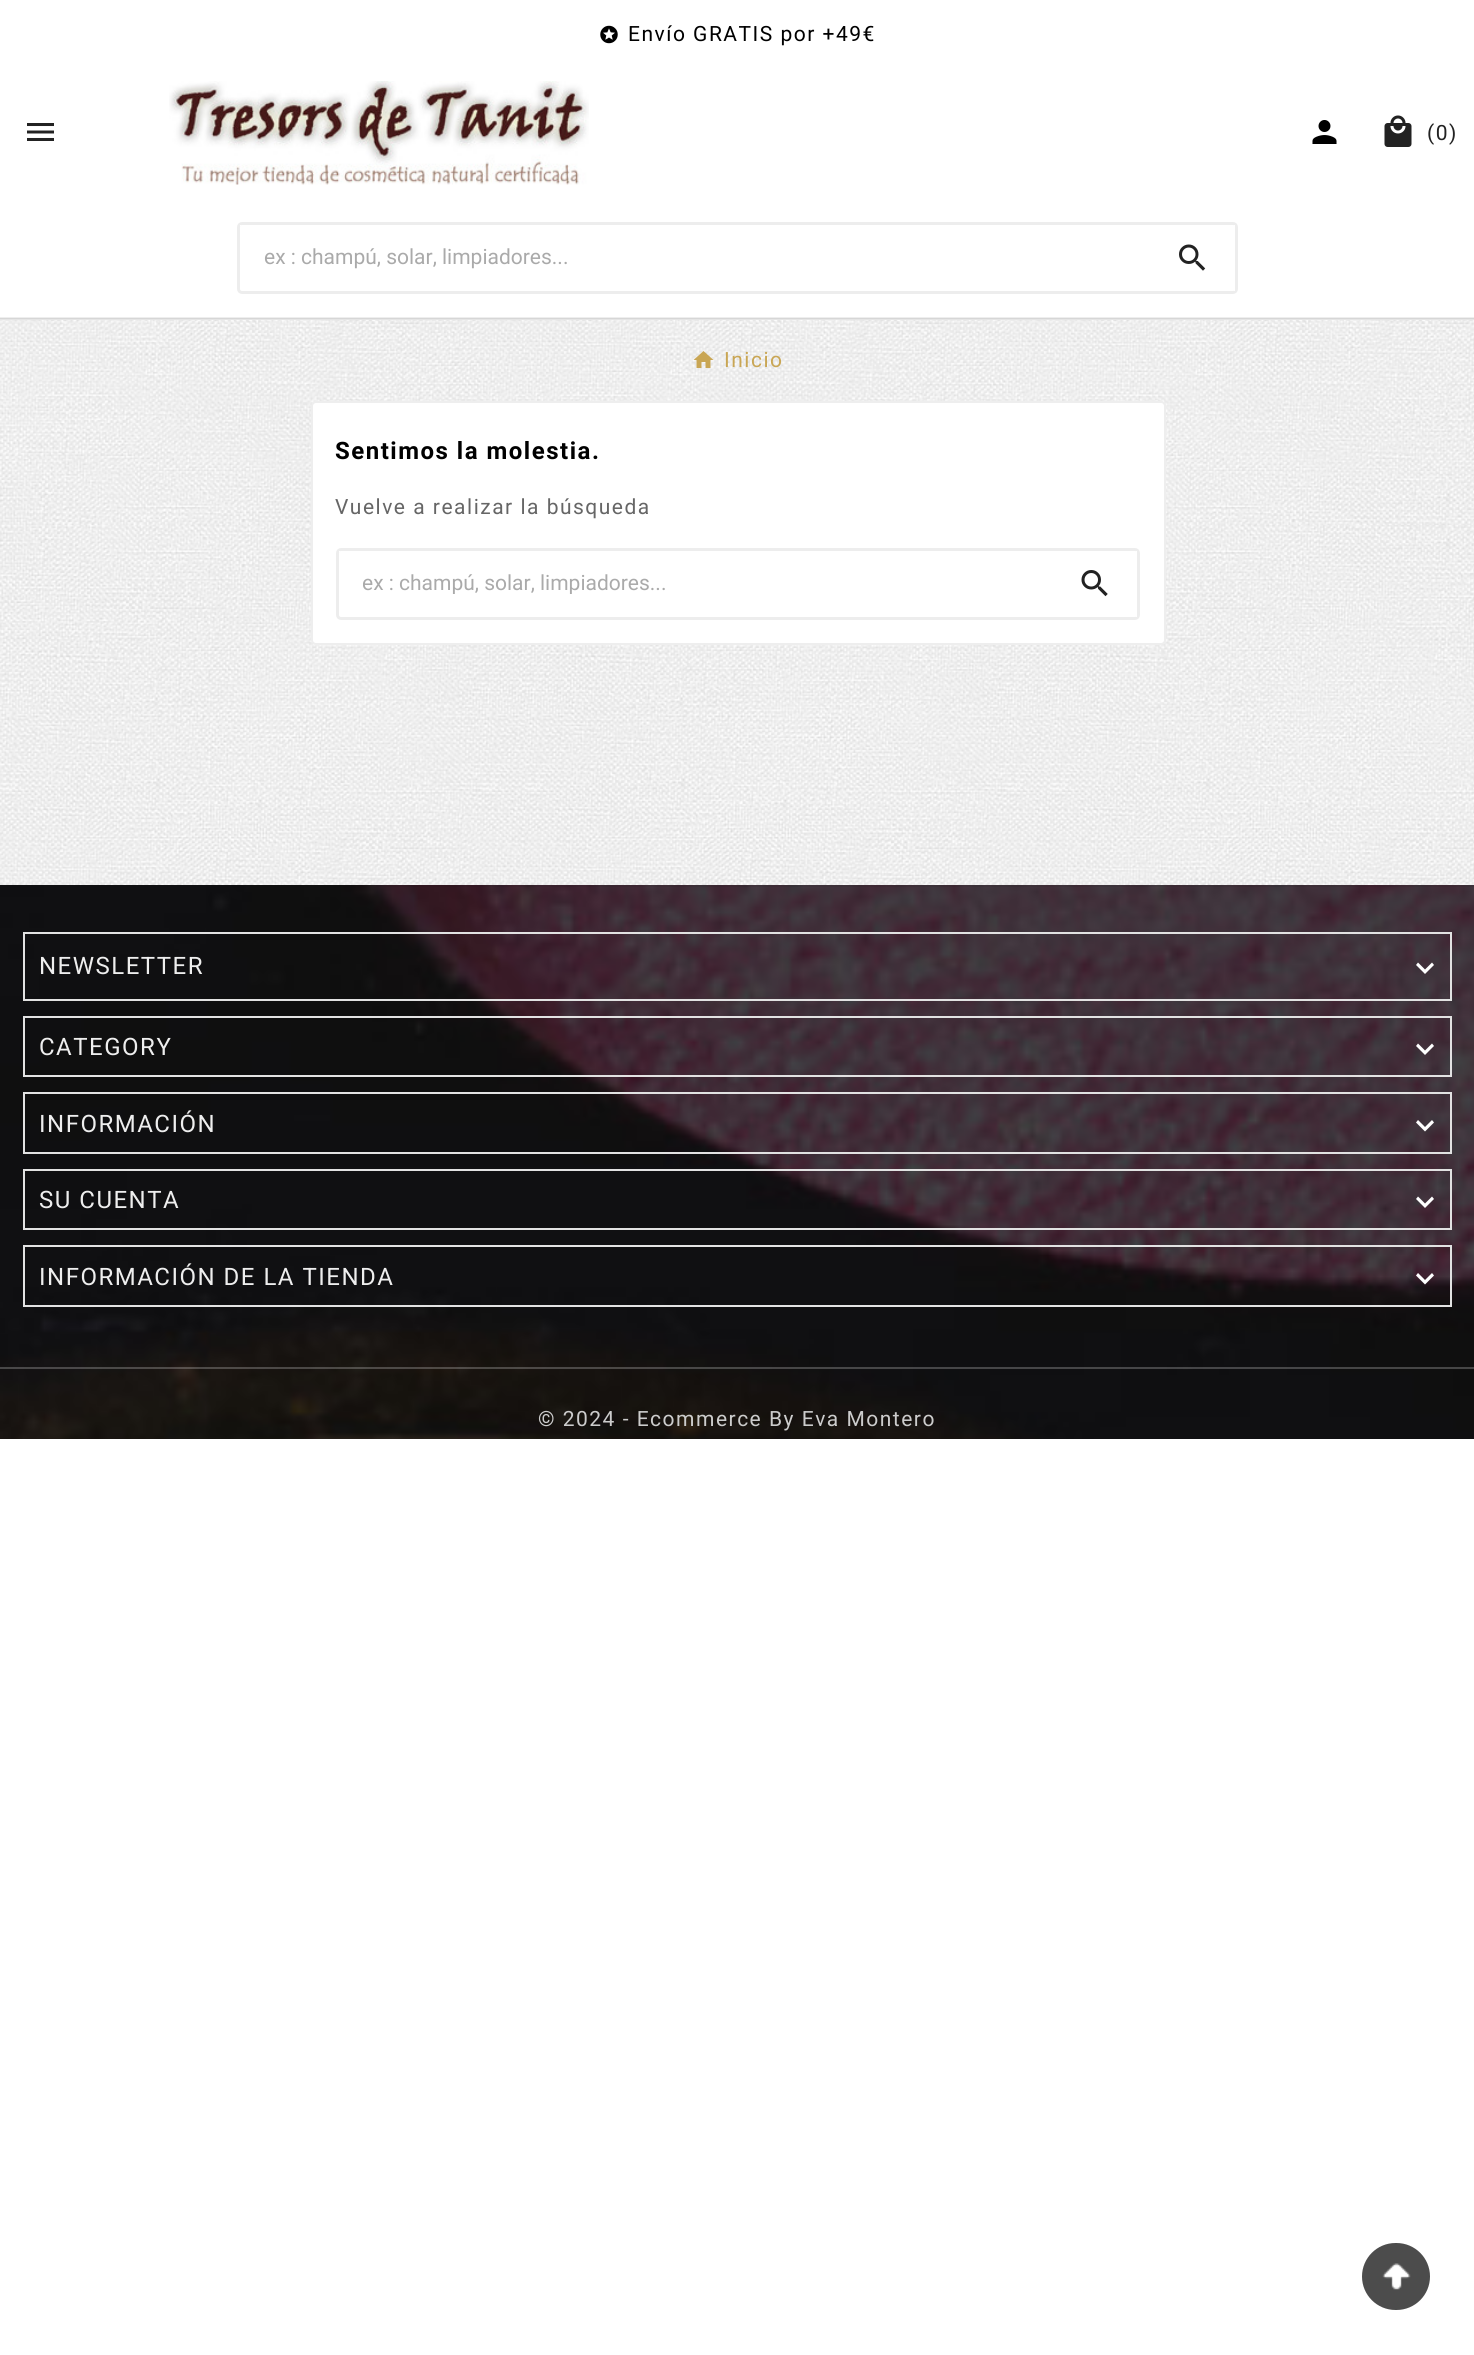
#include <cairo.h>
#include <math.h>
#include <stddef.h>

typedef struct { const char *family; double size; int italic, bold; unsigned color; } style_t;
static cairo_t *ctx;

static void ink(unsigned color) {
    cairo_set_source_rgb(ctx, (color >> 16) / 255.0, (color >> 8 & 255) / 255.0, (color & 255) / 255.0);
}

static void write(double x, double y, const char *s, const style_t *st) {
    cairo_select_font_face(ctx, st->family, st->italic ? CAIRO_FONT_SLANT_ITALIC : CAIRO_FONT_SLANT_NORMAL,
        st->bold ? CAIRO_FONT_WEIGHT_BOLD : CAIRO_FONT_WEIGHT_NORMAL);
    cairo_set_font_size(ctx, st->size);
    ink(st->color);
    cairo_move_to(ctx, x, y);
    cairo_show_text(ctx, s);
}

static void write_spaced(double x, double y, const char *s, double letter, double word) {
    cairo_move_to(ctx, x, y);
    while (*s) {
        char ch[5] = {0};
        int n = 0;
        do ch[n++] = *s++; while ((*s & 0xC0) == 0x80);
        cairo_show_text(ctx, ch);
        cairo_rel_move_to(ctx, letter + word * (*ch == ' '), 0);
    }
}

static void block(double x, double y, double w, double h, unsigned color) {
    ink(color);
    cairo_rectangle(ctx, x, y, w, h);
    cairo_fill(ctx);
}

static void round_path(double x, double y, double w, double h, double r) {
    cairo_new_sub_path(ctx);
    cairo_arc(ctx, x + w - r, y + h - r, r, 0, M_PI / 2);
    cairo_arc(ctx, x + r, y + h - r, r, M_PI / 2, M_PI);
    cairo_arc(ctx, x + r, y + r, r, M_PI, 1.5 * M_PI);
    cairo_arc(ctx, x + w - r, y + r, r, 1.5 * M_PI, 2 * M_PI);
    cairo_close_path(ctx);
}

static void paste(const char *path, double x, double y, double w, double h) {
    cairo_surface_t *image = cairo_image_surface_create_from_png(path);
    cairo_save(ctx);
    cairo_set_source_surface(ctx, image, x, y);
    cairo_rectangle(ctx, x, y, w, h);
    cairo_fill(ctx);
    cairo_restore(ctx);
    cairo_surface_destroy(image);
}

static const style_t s1 = {"Roboto", 21, 0, 0, 0xaaaaaa};

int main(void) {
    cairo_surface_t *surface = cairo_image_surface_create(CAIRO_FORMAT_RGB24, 1474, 2355);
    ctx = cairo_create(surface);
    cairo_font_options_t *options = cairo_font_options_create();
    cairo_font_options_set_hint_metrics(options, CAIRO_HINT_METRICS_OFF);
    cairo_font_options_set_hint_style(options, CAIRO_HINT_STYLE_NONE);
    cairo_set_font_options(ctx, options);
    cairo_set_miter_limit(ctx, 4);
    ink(0xffffff);
    cairo_paint(ctx);
    paste("pic1.png", 0, 320, 1474, 565);
    block(0, 318, 1474, 2, 0xe5e5e5);
    cairo_set_source_rgba(ctx, 0, 0, 0, 0.07);
    cairo_rectangle(ctx, 0, 317, 1474, 2);
    cairo_fill(ctx);
    paste("pic2.png", 600, 25, 18, 19);
    cairo_select_font_face(ctx, "Roboto", CAIRO_FONT_SLANT_NORMAL, CAIRO_FONT_WEIGHT_NORMAL);
    cairo_set_font_size(ctx, 21);
    ink(0x000000);
    write_spaced(628, 41, "Envío GRATIS por +49€", 1.5, 0);
    paste("pic3.png", 27, 123, 27, 18);
    paste("pic4.png", 169, 81, 420, 104);
    paste("pic5.png", 1312, 120, 25, 24);
    paste("pic6.png", 1384, 115, 28, 32);
    ink(0x222222);
    write_spaced(1427, 140, "(0)", 1.5, 0);
    round_path(238.5, 223.5, 998, 69, 3.5);
    ink(0xededed);
    cairo_set_line_width(ctx, 3);
    cairo_stroke(ctx);
    block(240, 225, 1, 1, 0xffffff);
    write(264, 264, "ex : champú, solar, limpiadores...", &s1);
    block(1234, 225, 1, 66, 0xffffff);
    paste("pic7.png", 1179, 244, 27, 27);
    paste("pic8.png", 693, 351, 21, 17);
    ink(0xc9a654);
    write_spaced(724, 367, "Inicio", 1.5, 0);
    ink(0xffffff);
    round_path(311, 401, 855, 244, 5);
    cairo_fill(ctx);
    round_path(312, 402, 853, 242, 4);
    cairo_set_source_rgba(ctx, 0, 0, 0, 0.07);
    cairo_set_line_width(ctx, 2);
    cairo_stroke(ctx);
    cairo_select_font_face(ctx, "Roboto", CAIRO_FONT_SLANT_NORMAL, CAIRO_FONT_WEIGHT_BOLD);
    cairo_set_font_size(ctx, 24);
    ink(0x000000);
    write_spaced(335, 459, "Sentimos la molestia.", 1.5, 0);
    cairo_select_font_face(ctx, "Roboto", CAIRO_FONT_SLANT_NORMAL, CAIRO_FONT_WEIGHT_NORMAL);
    cairo_set_font_size(ctx, 21);
    ink(0x666666);
    write_spaced(335, 514, "Vuelve a realizar la búsqueda", 1.5, 0);
    round_path(337.5, 549.5, 801, 69, 3.5);
    ink(0xededed);
    cairo_set_line_width(ctx, 3);
    cairo_stroke(ctx);
    block(339, 551, 1, 1, 0xffffff);
    cairo_save(ctx);
    cairo_rectangle(ctx, 363, 570, 675, 24);
    cairo_clip(ctx);
    write(362, 590, "ex : champú, solar, limpiadores...", &s1);
    cairo_restore(ctx);
    block(1136, 551, 1, 66, 0xffffff);
    paste("pic9.png", 1081, 570, 27, 27);
    paste("pic10.png", 0, 885, 1474, 554);
    cairo_set_source_rgba(ctx, 0, 0, 0, 0.07);
    cairo_rectangle(ctx, 376, 885, 1098, 2);
    cairo_fill(ctx);
    cairo_rectangle(ctx, 24, 933, 1427, 67);
    ink(0xe2e2e2);
    cairo_set_line_width(ctx, 2);
    cairo_stroke(ctx);
    cairo_set_font_size(ctx, 24);
    ink(0xeeeeee);
    write_spaced(39, 974, "NEWSLETTER", 1.5, 0);
    ink(0xffffff);
    cairo_new_path(ctx);
    cairo_move_to(ctx, 1418, 962.5);
    cairo_line_to(ctx, 1425, 969.5);
    cairo_line_to(ctx, 1432, 962.5);
    cairo_line_to(ctx, 1434, 965);
    cairo_line_to(ctx, 1425, 974);
    cairo_line_to(ctx, 1416, 965);
    cairo_close_path(ctx);
    cairo_fill(ctx);
    cairo_rectangle(ctx, 24, 1017, 1427, 59);
    ink(0xe2e2e2);
    cairo_stroke(ctx);
    ink(0xeeeeee);
    write_spaced(39, 1055, "CATEGORY", 1.5, 0);
    ink(0xffffff);
    cairo_new_path(ctx);
    cairo_move_to(ctx, 1418, 1043.5);
    cairo_line_to(ctx, 1425, 1050.5);
    cairo_line_to(ctx, 1432, 1043.5);
    cairo_line_to(ctx, 1434, 1046);
    cairo_line_to(ctx, 1425, 1055);
    cairo_line_to(ctx, 1416, 1046);
    cairo_close_path(ctx);
    cairo_fill(ctx);
    cairo_rectangle(ctx, 24, 1093, 1427, 60);
    ink(0xe2e2e2);
    cairo_stroke(ctx);
    ink(0xeeeeee);
    write_spaced(39, 1132, "INFORMACIÓN", 1.5, 0);
    ink(0xffffff);
    cairo_new_path(ctx);
    cairo_move_to(ctx, 1418, 1120);
    cairo_line_to(ctx, 1425, 1127);
    cairo_line_to(ctx, 1432, 1120);
    cairo_line_to(ctx, 1434, 1122.5);
    cairo_line_to(ctx, 1425, 1131.5);
    cairo_line_to(ctx, 1416, 1122.5);
    cairo_close_path(ctx);
    cairo_fill(ctx);
    cairo_rectangle(ctx, 24, 1170, 1427, 59);
    ink(0xe2e2e2);
    cairo_stroke(ctx);
    ink(0xeeeeee);
    write_spaced(39, 1208, "SU CUENTA", 1.5, 0);
    ink(0xffffff);
    cairo_new_path(ctx);
    cairo_move_to(ctx, 1418, 1196.5);
    cairo_line_to(ctx, 1425, 1203.5);
    cairo_line_to(ctx, 1432, 1196.5);
    cairo_line_to(ctx, 1434, 1199);
    cairo_line_to(ctx, 1425, 1208);
    cairo_line_to(ctx, 1416, 1199);
    cairo_close_path(ctx);
    cairo_fill(ctx);
    cairo_rectangle(ctx, 24, 1246, 1427, 60);
    ink(0xe2e2e2);
    cairo_stroke(ctx);
    ink(0xeeeeee);
    write_spaced(39, 1285, "INFORMACIÓN DE LA TIENDA", 1.5, 0);
    ink(0xffffff);
    cairo_new_path(ctx);
    cairo_move_to(ctx, 1418, 1273);
    cairo_line_to(ctx, 1425, 1280);
    cairo_line_to(ctx, 1432, 1273);
    cairo_line_to(ctx, 1434, 1275.5);
    cairo_line_to(ctx, 1425, 1284.5);
    cairo_line_to(ctx, 1416, 1275.5);
    cairo_close_path(ctx);
    cairo_fill(ctx);
    ink(0x4c4c4c);
    round_path(1362, 2243, 68, 67, 33.5);
    cairo_fill(ctx);
    paste("pic11.png", 1382, 2263, 29, 27);
    cairo_set_source_rgba(ctx, 0.933, 0.933, 0.933, 0.25);
    cairo_rectangle(ctx, 0, 1367, 1474, 2);
    cairo_fill(ctx);
    cairo_set_font_size(ctx, 21);
    ink(0xcccccc);
    write_spaced(538, 1426, "© 2024 - Ecommerce By Eva Montero", 1.5, 0);
    cairo_surface_write_to_png(surface, "screenshot.png");
    cairo_font_options_destroy(options);
    cairo_destroy(ctx);
    cairo_surface_destroy(surface);
    return 0;
}
